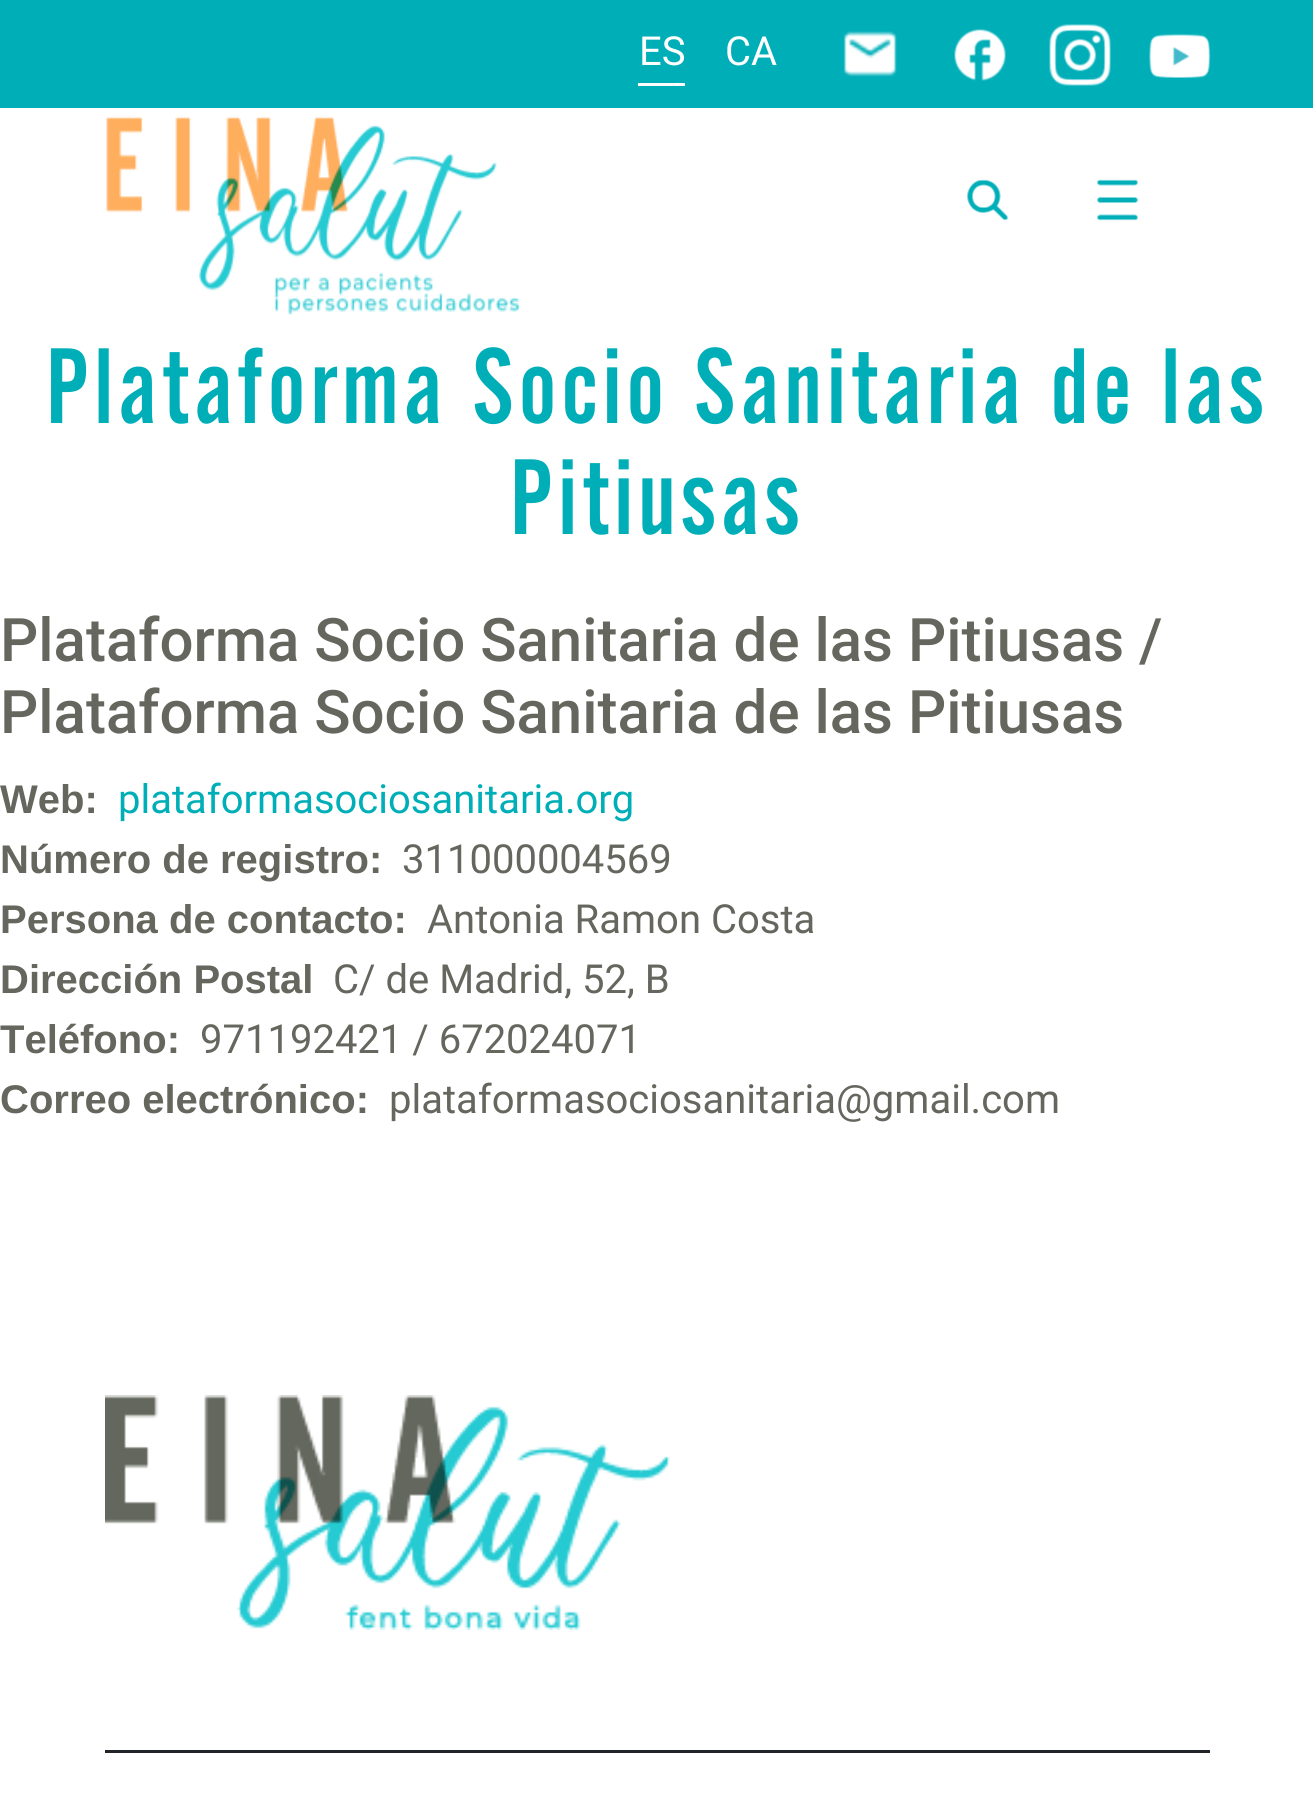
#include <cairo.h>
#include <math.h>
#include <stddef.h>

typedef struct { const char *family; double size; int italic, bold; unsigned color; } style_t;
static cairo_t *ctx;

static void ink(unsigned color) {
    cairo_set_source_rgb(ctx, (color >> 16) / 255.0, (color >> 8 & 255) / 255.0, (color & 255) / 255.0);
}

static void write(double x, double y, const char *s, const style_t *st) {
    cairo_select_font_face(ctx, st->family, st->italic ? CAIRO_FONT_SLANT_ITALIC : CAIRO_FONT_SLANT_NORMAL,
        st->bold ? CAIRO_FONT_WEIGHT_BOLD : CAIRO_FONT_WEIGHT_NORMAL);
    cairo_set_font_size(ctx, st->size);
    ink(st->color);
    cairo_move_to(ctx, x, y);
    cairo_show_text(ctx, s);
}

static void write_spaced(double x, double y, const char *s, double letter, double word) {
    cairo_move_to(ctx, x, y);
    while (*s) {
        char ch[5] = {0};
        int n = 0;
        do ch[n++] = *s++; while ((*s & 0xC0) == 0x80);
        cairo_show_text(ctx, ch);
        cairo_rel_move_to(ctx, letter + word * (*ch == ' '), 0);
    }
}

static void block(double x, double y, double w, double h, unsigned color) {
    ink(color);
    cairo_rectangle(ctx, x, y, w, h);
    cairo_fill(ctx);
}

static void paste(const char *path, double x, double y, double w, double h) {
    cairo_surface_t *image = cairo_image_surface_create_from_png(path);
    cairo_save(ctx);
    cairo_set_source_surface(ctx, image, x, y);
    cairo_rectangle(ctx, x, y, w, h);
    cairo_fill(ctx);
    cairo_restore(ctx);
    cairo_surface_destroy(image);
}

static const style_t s1 = {"Roboto", 40, 0, 0, 0xffffff};
static const style_t s2 = {"Roboto Medium", 60, 0, 0, 0x65665e};
static const style_t s3 = {"Liberation Sans", 40, 0, 1, 0x65665e};
static const style_t s4 = {"Roboto", 40, 0, 0, 0x00aeb8};
static const style_t s5 = {"Roboto", 40, 0, 0, 0x65665e};

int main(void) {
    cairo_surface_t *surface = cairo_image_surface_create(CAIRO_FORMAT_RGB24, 1313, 1812);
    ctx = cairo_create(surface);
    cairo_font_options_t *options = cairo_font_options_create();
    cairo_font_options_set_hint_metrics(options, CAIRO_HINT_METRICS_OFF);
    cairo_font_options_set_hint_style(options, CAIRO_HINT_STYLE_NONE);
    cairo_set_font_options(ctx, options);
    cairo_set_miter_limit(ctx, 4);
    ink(0xffffff);
    cairo_paint(ctx);
    block(0, 0, 1313, 108, 0x00aeb8);
    block(638, 83, 47, 3, 0xffffff);
    write(639, 65, "ES", &s1);
    write(725, 65, "CA", &s1);
    paste("pic1.png", 843, 31, 54, 46);
    paste("pic2.png", 954, 29, 52, 52);
    paste("pic3.png", 1049, 24, 62, 62);
    paste("pic4.png", 1149, 34, 62, 44);
    paste("pic5.png", 106, 116, 415, 199);
    paste("pic6.png", 967, 179, 41, 42);
    paste("pic7.png", 1097, 179, 41, 42);
    cairo_select_font_face(ctx, "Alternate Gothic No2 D", CAIRO_FONT_SLANT_NORMAL, CAIRO_FONT_WEIGHT_NORMAL);
    cairo_set_font_size(ctx, 112);
    ink(0x00aeb8);
    write_spaced(46, 423, "Plataforma Socio Sanitaria de las", 5, 0);
    write_spaced(510, 534, "Pitiusas", 5, 0);
    write(0, 661, "Plataforma Socio Sanitaria de las Pitiusas /", &s2);
    write(0, 733, "Plataforma Socio Sanitaria de las Pitiusas", &s2);
    write(0, 813, "Web:", &s3);
    write(118, 813, "plataformasociosanitaria.org", &s4);
    write(0, 873, "Número de registro:", &s3);
    write(402, 873, "311000004569", &s5);
    write(0, 933, "Persona de contacto:", &s3);
    write(427, 933, "Antonia Ramon Costa", &s5);
    write(0, 993, "Dirección Postal", &s3);
    write(333, 993, "C/ de Madrid, 52, B", &s5);
    write(0, 1053, "Teléfono:", &s3);
    write(200, 1053, "971192421 / 672024071", &s5);
    write(0, 1113, "Correo electrónico:", &s3);
    write(389, 1113, "plataformasociosanitaria@gmail.com", &s5);
    block(105, 1750, 1105, 3, 0x212529);
    paste("pic8.png", 105, 1395, 565, 235);
    cairo_surface_write_to_png(surface, "screenshot.png");
    cairo_font_options_destroy(options);
    cairo_destroy(ctx);
    cairo_surface_destroy(surface);
    return 0;
}
